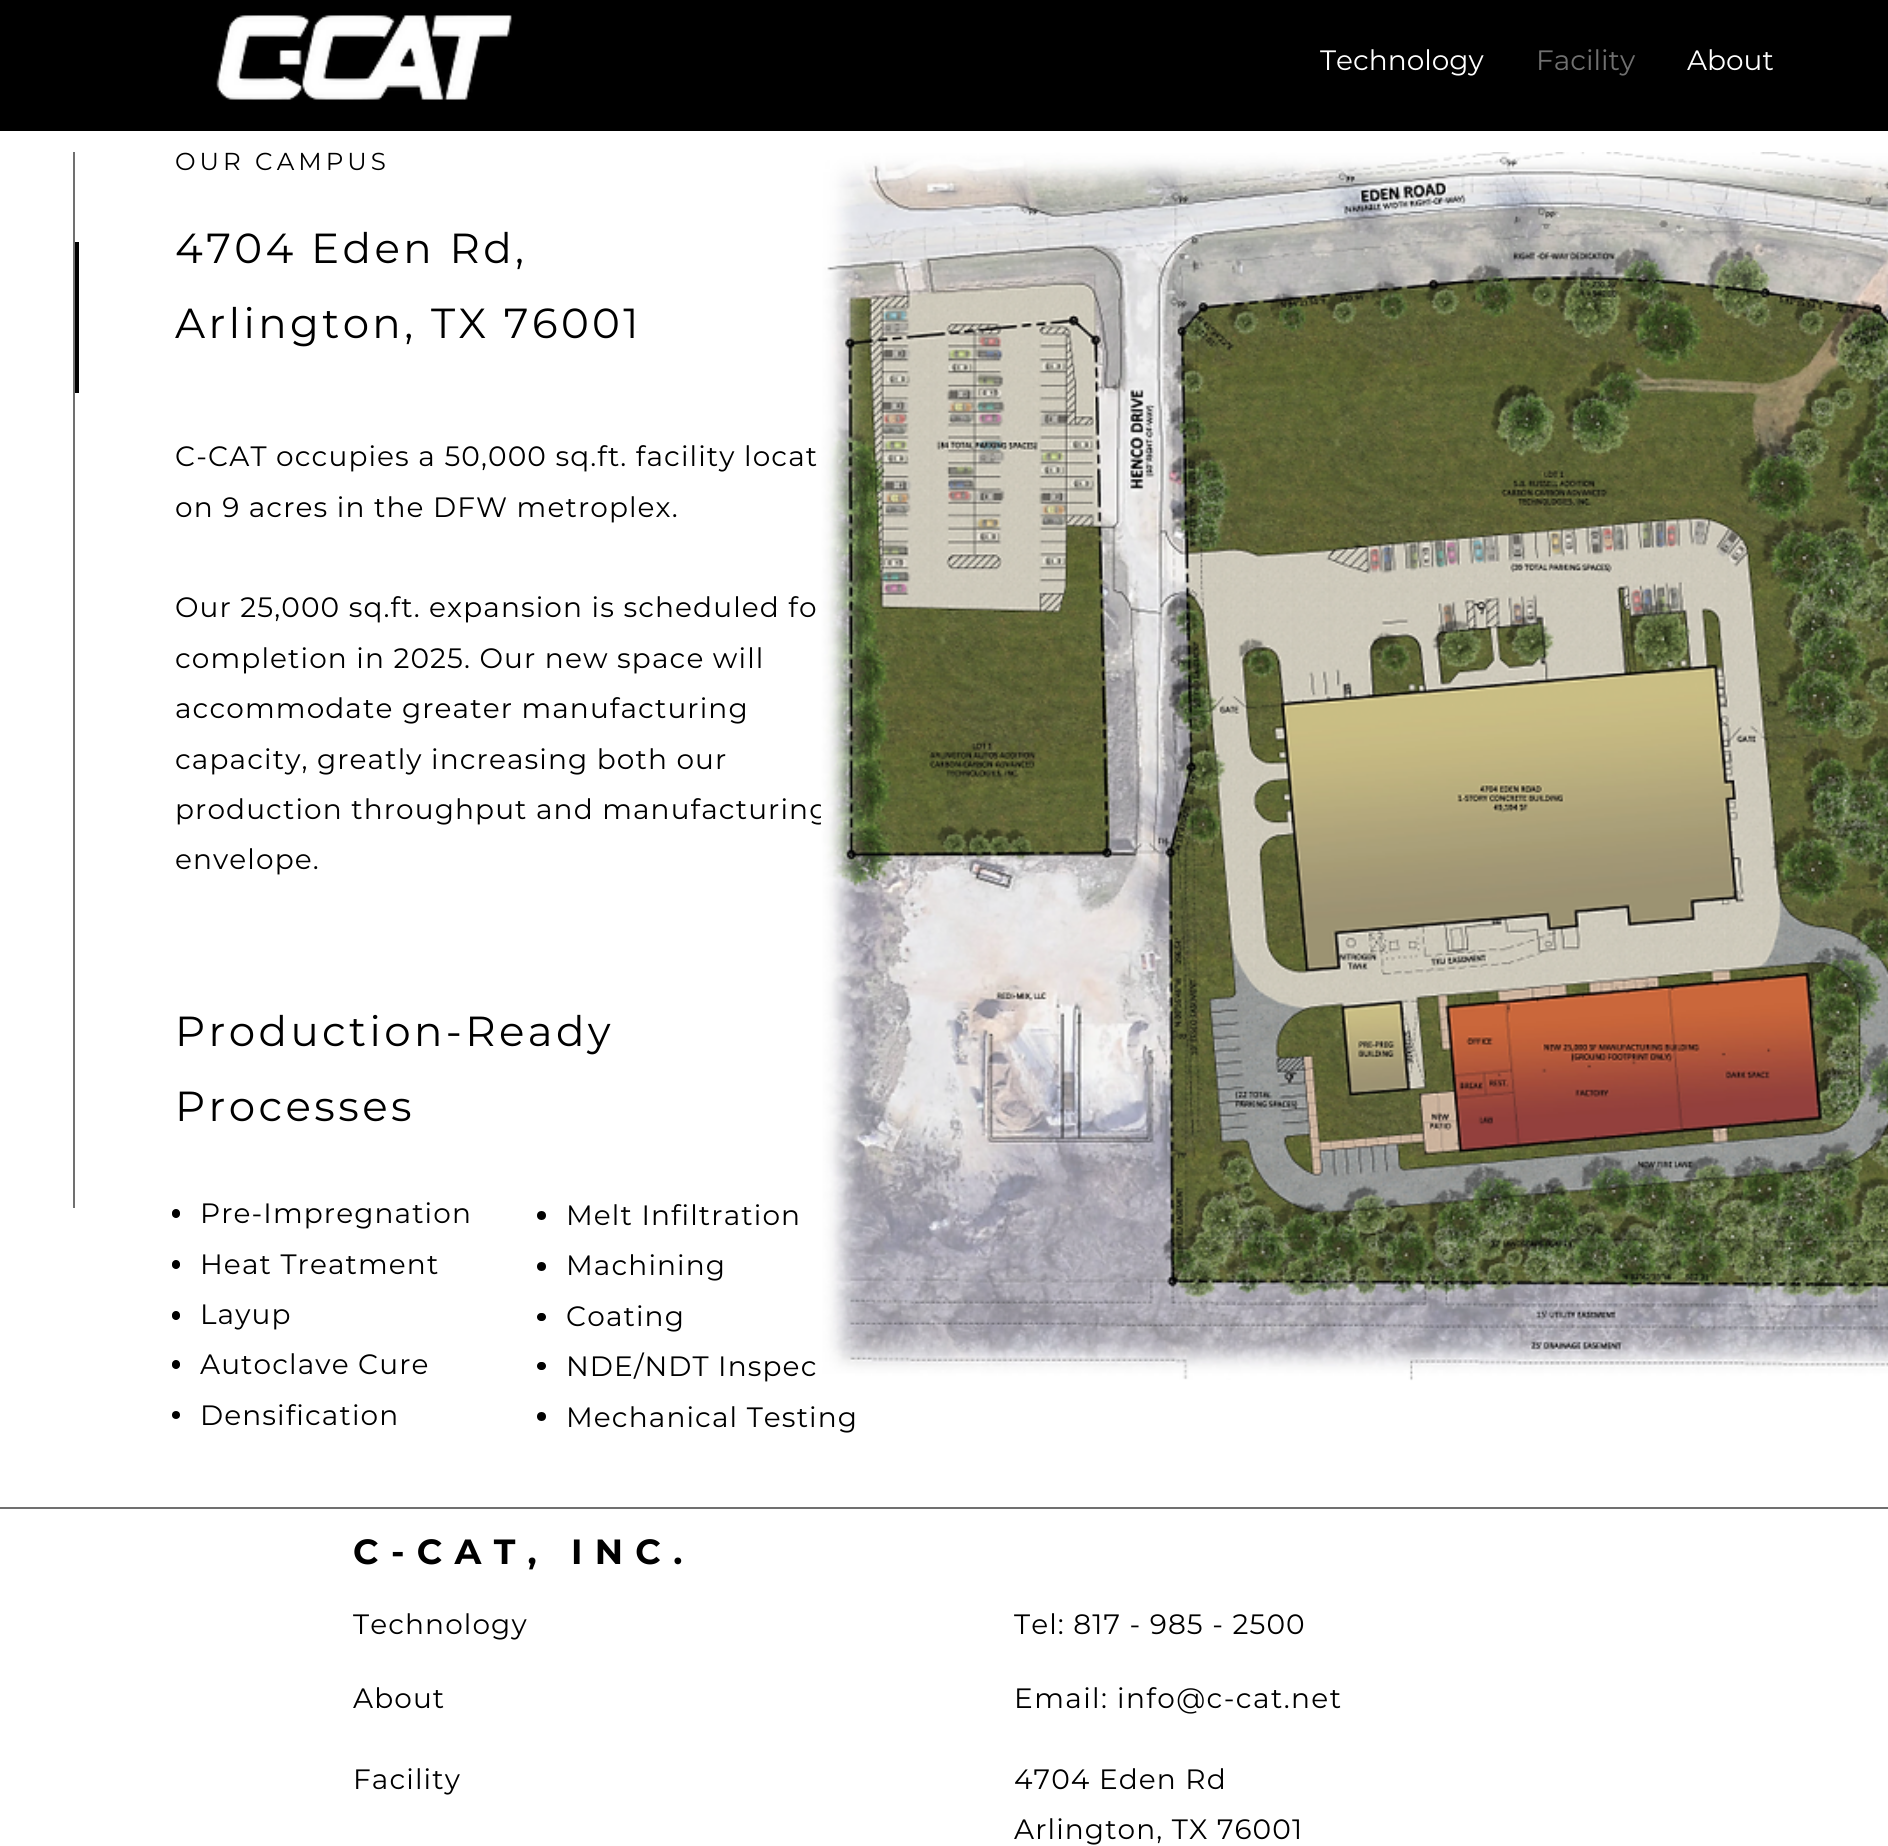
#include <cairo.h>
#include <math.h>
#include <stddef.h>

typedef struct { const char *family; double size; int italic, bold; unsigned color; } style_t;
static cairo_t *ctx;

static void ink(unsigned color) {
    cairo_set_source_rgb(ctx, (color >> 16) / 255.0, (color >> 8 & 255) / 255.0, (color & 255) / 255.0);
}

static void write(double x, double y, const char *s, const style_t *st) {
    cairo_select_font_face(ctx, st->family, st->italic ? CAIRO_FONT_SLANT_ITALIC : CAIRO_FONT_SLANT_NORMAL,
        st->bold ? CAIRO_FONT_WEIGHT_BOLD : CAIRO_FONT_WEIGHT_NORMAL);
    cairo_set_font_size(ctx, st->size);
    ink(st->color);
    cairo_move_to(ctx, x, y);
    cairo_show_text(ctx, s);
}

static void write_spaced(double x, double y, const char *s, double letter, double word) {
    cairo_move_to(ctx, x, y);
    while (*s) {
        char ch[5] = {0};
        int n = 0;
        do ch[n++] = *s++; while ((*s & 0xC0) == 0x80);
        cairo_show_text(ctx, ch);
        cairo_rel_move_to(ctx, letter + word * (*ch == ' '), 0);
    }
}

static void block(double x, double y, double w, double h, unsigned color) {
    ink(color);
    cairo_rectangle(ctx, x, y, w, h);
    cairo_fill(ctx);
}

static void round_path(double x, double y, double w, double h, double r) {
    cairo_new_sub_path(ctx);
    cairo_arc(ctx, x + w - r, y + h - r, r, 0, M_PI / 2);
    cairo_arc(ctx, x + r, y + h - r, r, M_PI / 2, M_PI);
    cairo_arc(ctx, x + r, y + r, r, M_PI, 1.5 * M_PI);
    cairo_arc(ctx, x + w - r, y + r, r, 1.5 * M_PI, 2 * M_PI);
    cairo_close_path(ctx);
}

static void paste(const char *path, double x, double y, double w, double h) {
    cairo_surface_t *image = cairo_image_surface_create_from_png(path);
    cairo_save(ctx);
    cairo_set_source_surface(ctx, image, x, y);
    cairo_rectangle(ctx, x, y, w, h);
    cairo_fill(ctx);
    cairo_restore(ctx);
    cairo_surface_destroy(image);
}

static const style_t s1 = {"Montserrat", 28, 0, 0, 0xffffff};
static const style_t s2 = {"Montserrat", 28, 0, 0, 0x707070};

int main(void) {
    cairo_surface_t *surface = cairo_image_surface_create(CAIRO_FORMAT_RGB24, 1888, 1846);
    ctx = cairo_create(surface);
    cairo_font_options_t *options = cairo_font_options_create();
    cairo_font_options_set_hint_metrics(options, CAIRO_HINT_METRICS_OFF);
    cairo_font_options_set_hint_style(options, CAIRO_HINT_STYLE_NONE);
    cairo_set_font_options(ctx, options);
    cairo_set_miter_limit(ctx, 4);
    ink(0xffffff);
    cairo_paint(ctx);
    block(0, 0, 1888, 131, 0x000000);
    paste("pic1.png", 216, 15, 296, 85);
    write(1320, 70, "Technology", &s1);
    write(1536, 70, "Facility", &s2);
    write(1687, 70, "About", &s1);
    block(73, 152, 2, 1056, 0x707070);
    cairo_set_font_size(ctx, 24.5);
    ink(0x000000);
    write_spaced(175, 170, "OUR CAMPUS", 4, 0);
    block(75, 242, 4, 151, 0x000000);
    cairo_set_font_size(ctx, 42);
    write_spaced(175, 263, "4704 Eden Rd,", 3.4, 0);
    write_spaced(175, 338, "Arlington, TX 76001", 3.4, 0);
    cairo_set_font_size(ctx, 28);
    write_spaced(175, 466, "C-CAT occupies a 50,000 sq.ft. facility locat", 1.1, 0);
    write_spaced(175, 517, "on 9 acres in the DFW metroplex.", 1.1, 0);
    write_spaced(175, 617, "Our 25,000 sq.ft. expansion is scheduled fo", 1.1, 0);
    write_spaced(175, 668, "completion in 2025. Our new space will", 1.1, 0);
    write_spaced(175, 718, "accommodate greater manufacturing", 1.1, 0);
    write_spaced(175, 769, "capacity, greatly increasing both our", 1.1, 0);
    write_spaced(175, 819, "production throughput and manufacturing", 1.1, 0);
    write_spaced(175, 869, "envelope.", 1.1, 0);
    cairo_set_font_size(ctx, 42);
    write_spaced(175, 1046, "Production-Ready", 3.4, 0);
    write_spaced(175, 1121, "Processes", 3.4, 0);
    round_path(172, 1209, 8, 9, 4);
    cairo_fill(ctx);
    cairo_set_font_size(ctx, 28);
    write_spaced(200, 1223, "Pre-Impregnation", 1.1, 0);
    round_path(172, 1260, 8, 9, 4);
    cairo_fill(ctx);
    write_spaced(200, 1274, "Heat Treatment", 1.1, 0);
    round_path(172, 1311, 8, 9, 4);
    cairo_fill(ctx);
    write_spaced(200, 1324, "Layup", 1.1, 0);
    round_path(172, 1360, 8, 9, 4);
    cairo_fill(ctx);
    write_spaced(200, 1374, "Autoclave Cure", 1.1, 0);
    cairo_new_path(ctx);
    cairo_arc(ctx, 176, 1415, 4, 0, 2 * M_PI);
    cairo_fill(ctx);
    write_spaced(200, 1425, "Densification", 1.1, 0);
    cairo_new_path(ctx);
    cairo_arc(ctx, 541.5, 1215.5, 4.5, 0, 2 * M_PI);
    cairo_fill(ctx);
    write_spaced(566, 1225, "Melt Infiltration", 1.1, 0);
    cairo_new_path(ctx);
    cairo_arc(ctx, 541.5, 1266.5, 4.5, 0, 2 * M_PI);
    cairo_fill(ctx);
    write_spaced(566, 1275, "Machining", 1.1, 0);
    round_path(537, 1313, 9, 8, 4);
    cairo_fill(ctx);
    write_spaced(566, 1326, "Coating", 1.1, 0);
    round_path(537, 1362, 9, 8, 4);
    cairo_fill(ctx);
    write_spaced(566, 1376, "NDE/NDT Inspec", 1.1, 0);
    cairo_new_path(ctx);
    cairo_arc(ctx, 541.5, 1416.5, 4.5, 0, 2 * M_PI);
    cairo_fill(ctx);
    write_spaced(566, 1427, "Mechanical Testing", 1.1, 0);
    paste("pic2.png", 820, 152, 1068, 1229);
    block(0, 1507, 1888, 2, 0x707070);
    cairo_select_font_face(ctx, "Montserrat", CAIRO_FONT_SLANT_NORMAL, CAIRO_FONT_WEIGHT_BOLD);
    cairo_set_font_size(ctx, 35);
    ink(0x000000);
    write_spaced(353, 1564, "C-CAT, INC.", 12.25, 0);
    cairo_select_font_face(ctx, "Montserrat", CAIRO_FONT_SLANT_NORMAL, CAIRO_FONT_WEIGHT_NORMAL);
    cairo_set_font_size(ctx, 28);
    write_spaced(353, 1634, "Technology", 1.1, 0);
    write_spaced(1014, 1634, "Tel: 817 - 985 - 2500", 1.1, 0);
    write_spaced(353, 1708, "About", 1.1, 0);
    write_spaced(1014, 1708, "Email: info@c-cat.net", 1.4, 0);
    write_spaced(353, 1789, "Facility", 1.1, 0);
    write_spaced(1014, 1789, "4704 Eden Rd", 1.1, 0);
    write_spaced(1014, 1839, "Arlington, TX 76001", 1.1, 0);
    cairo_surface_write_to_png(surface, "screenshot.png");
    cairo_font_options_destroy(options);
    cairo_destroy(ctx);
    cairo_surface_destroy(surface);
    return 0;
}
